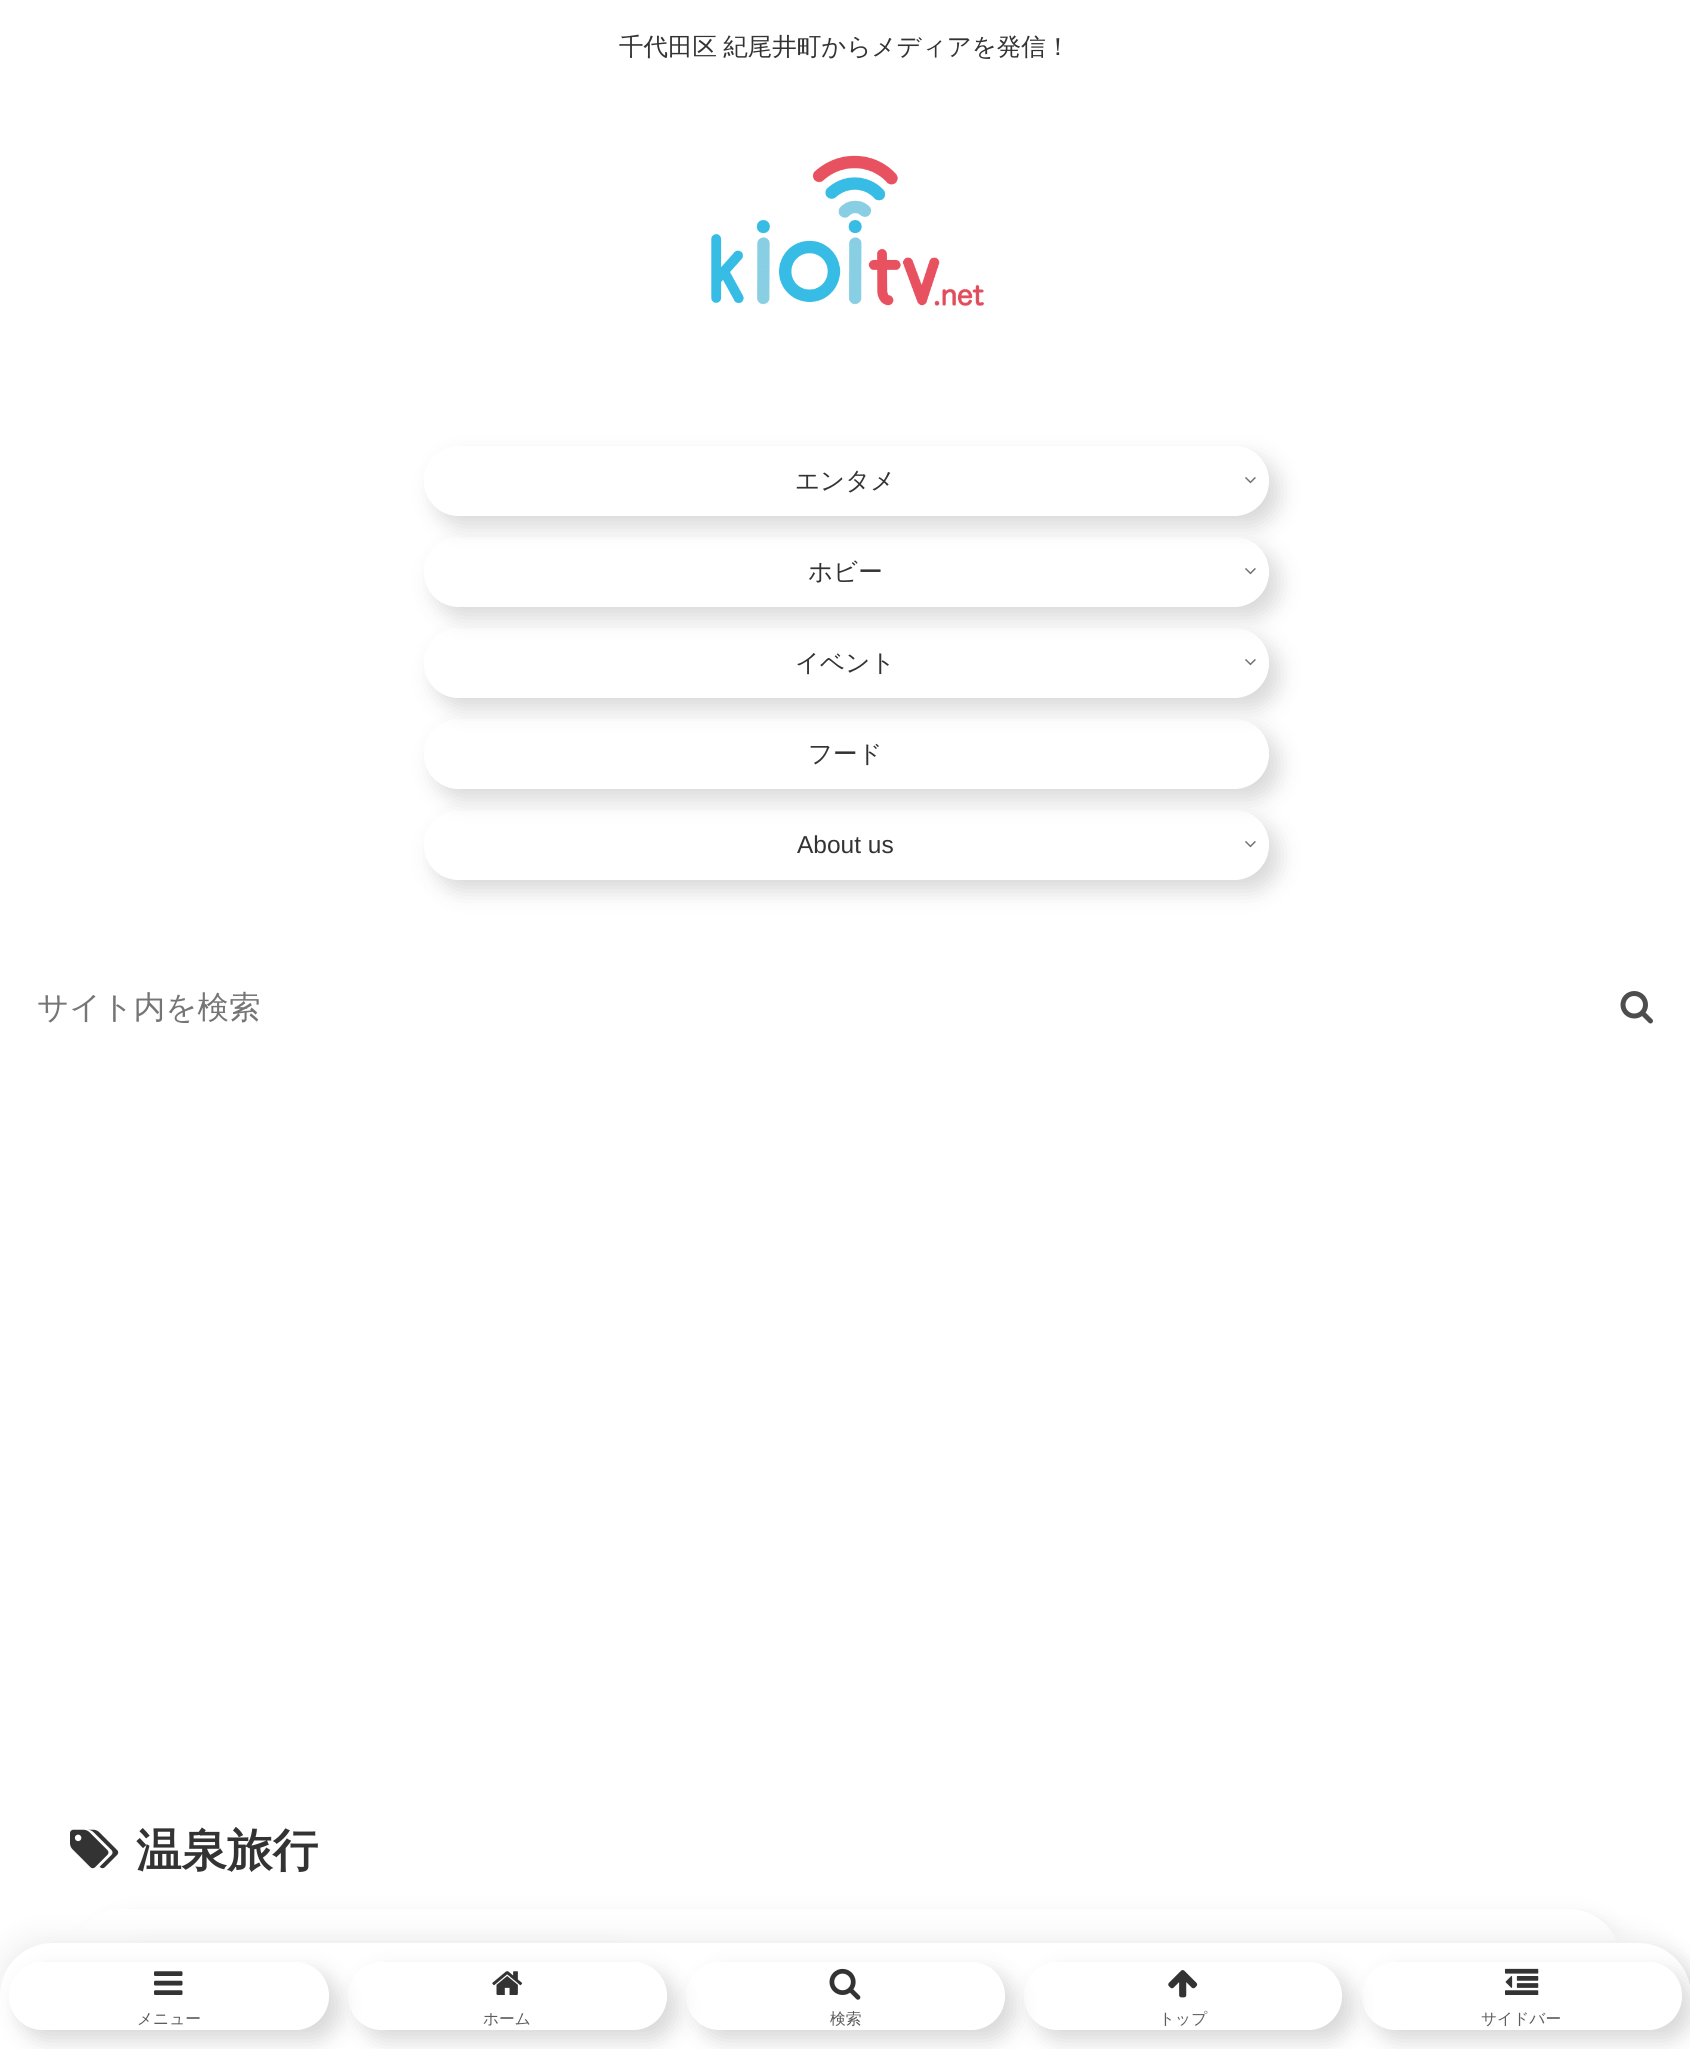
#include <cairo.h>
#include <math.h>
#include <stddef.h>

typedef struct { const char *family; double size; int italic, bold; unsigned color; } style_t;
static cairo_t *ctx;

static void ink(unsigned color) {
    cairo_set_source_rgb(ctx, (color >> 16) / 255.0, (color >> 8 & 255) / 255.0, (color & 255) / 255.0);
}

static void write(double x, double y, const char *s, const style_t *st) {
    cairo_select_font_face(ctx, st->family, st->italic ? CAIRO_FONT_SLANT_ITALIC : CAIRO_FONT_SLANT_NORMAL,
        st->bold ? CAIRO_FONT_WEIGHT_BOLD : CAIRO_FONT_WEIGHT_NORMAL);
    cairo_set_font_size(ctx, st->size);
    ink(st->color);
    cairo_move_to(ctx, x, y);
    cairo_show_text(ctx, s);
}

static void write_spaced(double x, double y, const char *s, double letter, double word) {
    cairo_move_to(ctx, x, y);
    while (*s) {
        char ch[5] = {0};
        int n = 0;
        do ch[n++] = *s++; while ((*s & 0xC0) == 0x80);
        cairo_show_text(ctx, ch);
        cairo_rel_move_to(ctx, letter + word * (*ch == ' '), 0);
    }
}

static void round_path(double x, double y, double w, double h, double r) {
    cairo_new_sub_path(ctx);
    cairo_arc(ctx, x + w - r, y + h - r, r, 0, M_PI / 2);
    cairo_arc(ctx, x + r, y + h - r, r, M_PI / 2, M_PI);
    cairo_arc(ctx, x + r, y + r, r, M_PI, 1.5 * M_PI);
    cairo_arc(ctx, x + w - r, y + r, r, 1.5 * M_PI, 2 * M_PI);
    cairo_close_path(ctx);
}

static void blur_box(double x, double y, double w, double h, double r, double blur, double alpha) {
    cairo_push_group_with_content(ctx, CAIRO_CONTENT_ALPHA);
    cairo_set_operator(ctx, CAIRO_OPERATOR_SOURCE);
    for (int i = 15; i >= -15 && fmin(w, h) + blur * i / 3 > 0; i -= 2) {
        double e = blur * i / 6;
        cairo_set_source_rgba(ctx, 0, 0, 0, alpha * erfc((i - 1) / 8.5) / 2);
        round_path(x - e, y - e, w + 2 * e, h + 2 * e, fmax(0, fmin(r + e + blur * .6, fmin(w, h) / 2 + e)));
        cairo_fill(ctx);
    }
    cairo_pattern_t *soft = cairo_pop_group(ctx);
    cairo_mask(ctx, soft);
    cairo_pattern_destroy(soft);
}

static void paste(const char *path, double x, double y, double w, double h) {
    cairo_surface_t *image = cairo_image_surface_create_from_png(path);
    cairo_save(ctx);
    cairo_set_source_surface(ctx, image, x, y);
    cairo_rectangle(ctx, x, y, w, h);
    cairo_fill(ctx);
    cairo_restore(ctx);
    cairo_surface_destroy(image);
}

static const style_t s1 = {"WenQuanYi Zen Hei Medium", 24.5, 0, 0, 0x333333};
static const style_t s2 = {"Liberation Sans", 24.5, 0, 0, 0x333333};
static const style_t s3 = {"WenQuanYi Zen Hei Medium", 31.5, 0, 0, 0x757575};
static const style_t s4 = {"WenQuanYi Zen Hei", 45.5, 0, 1, 0x333333};
static const style_t s5 = {"WenQuanYi Zen Hei Medium", 15.75, 0, 0, 0x5c5c5c};

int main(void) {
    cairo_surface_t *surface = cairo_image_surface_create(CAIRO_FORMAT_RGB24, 1690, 2049);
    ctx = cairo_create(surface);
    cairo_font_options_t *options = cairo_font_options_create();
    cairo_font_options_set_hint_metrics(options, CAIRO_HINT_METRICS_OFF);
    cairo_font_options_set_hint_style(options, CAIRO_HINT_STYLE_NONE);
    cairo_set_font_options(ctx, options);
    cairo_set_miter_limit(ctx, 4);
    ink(0xffffff);
    cairo_paint(ctx);
    cairo_select_font_face(ctx, "WenQuanYi Zen Hei Medium", CAIRO_FONT_SLANT_NORMAL, CAIRO_FONT_WEIGHT_NORMAL);
    cairo_set_font_size(ctx, 24.5);
    ink(0x333333);
    write_spaced(619, 55, "千代田区 紀尾井町からメディアを発信！", 0, -1);
    paste("pic1.png", 711, 155, 273, 151);
    cairo_save(ctx);
    cairo_set_fill_rule(ctx, CAIRO_FILL_RULE_EVEN_ODD);
    cairo_new_path(ctx);
    cairo_move_to(ctx, 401, 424);
    cairo_line_to(ctx, 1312, 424);
    cairo_line_to(ctx, 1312, 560);
    cairo_line_to(ctx, 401, 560);
    cairo_close_path(ctx);
    cairo_move_to(ctx, 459, 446);
    cairo_line_to(ctx, 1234, 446);
    cairo_curve_to(ctx, 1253.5, 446, 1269, 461.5, 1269, 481);
    cairo_curve_to(ctx, 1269, 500.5, 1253.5, 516, 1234, 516);
    cairo_line_to(ctx, 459, 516);
    cairo_curve_to(ctx, 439.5, 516, 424, 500.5, 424, 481);
    cairo_curve_to(ctx, 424, 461.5, 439.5, 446, 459, 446);
    cairo_close_path(ctx);
    cairo_clip(ctx);
    ink(0xd9d9d9);
    blur_box(434, 457, 845, 70, 35, 10.5, 1);
    cairo_restore(ctx);
    write(795, 489, "エンタメ", &s1);
    paste("pic2.png", 1245, 477, 11, 7);
    cairo_save(ctx);
    cairo_set_fill_rule(ctx, CAIRO_FILL_RULE_EVEN_ODD);
    cairo_new_path(ctx);
    cairo_move_to(ctx, 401, 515);
    cairo_line_to(ctx, 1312, 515);
    cairo_line_to(ctx, 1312, 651);
    cairo_line_to(ctx, 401, 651);
    cairo_close_path(ctx);
    cairo_move_to(ctx, 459, 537);
    cairo_line_to(ctx, 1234, 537);
    cairo_curve_to(ctx, 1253.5, 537, 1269, 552.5, 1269, 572);
    cairo_curve_to(ctx, 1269, 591.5, 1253.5, 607, 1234, 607);
    cairo_line_to(ctx, 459, 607);
    cairo_curve_to(ctx, 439.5, 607, 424, 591.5, 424, 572);
    cairo_curve_to(ctx, 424, 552.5, 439.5, 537, 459, 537);
    cairo_close_path(ctx);
    cairo_clip(ctx);
    ink(0xd9d9d9);
    blur_box(434, 548, 845, 70, 35, 10.5, 1);
    cairo_restore(ctx);
    write(808, 580, "ホビー", &s1);
    paste("pic2.png", 1245, 568, 11, 7);
    cairo_save(ctx);
    cairo_set_fill_rule(ctx, CAIRO_FILL_RULE_EVEN_ODD);
    cairo_new_path(ctx);
    cairo_move_to(ctx, 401, 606);
    cairo_line_to(ctx, 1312, 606);
    cairo_line_to(ctx, 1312, 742);
    cairo_line_to(ctx, 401, 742);
    cairo_close_path(ctx);
    cairo_move_to(ctx, 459, 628);
    cairo_line_to(ctx, 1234, 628);
    cairo_curve_to(ctx, 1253.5, 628, 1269, 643.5, 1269, 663);
    cairo_curve_to(ctx, 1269, 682.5, 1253.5, 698, 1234, 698);
    cairo_line_to(ctx, 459, 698);
    cairo_curve_to(ctx, 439.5, 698, 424, 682.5, 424, 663);
    cairo_curve_to(ctx, 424, 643.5, 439.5, 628, 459, 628);
    cairo_close_path(ctx);
    cairo_clip(ctx);
    ink(0xd9d9d9);
    blur_box(434, 639, 845, 70, 35, 10.5, 1);
    cairo_restore(ctx);
    write(795, 671, "イベント", &s1);
    paste("pic2.png", 1245, 659, 11, 7);
    cairo_save(ctx);
    cairo_set_fill_rule(ctx, CAIRO_FILL_RULE_EVEN_ODD);
    cairo_new_path(ctx);
    cairo_move_to(ctx, 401, 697);
    cairo_line_to(ctx, 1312, 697);
    cairo_line_to(ctx, 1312, 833);
    cairo_line_to(ctx, 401, 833);
    cairo_close_path(ctx);
    cairo_move_to(ctx, 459, 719);
    cairo_line_to(ctx, 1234, 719);
    cairo_curve_to(ctx, 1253.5, 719, 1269, 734.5, 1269, 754);
    cairo_curve_to(ctx, 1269, 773.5, 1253.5, 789, 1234, 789);
    cairo_line_to(ctx, 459, 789);
    cairo_curve_to(ctx, 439.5, 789, 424, 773.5, 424, 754);
    cairo_curve_to(ctx, 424, 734.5, 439.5, 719, 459, 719);
    cairo_close_path(ctx);
    cairo_clip(ctx);
    ink(0xd9d9d9);
    blur_box(434, 730, 845, 70, 35, 10.5, 1);
    cairo_restore(ctx);
    write(808, 762, "フード", &s1);
    cairo_save(ctx);
    cairo_set_fill_rule(ctx, CAIRO_FILL_RULE_EVEN_ODD);
    cairo_new_path(ctx);
    cairo_move_to(ctx, 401, 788);
    cairo_line_to(ctx, 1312, 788);
    cairo_line_to(ctx, 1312, 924);
    cairo_line_to(ctx, 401, 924);
    cairo_close_path(ctx);
    cairo_move_to(ctx, 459, 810);
    cairo_line_to(ctx, 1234, 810);
    cairo_curve_to(ctx, 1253.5, 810, 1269, 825.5, 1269, 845);
    cairo_curve_to(ctx, 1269, 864.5, 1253.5, 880, 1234, 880);
    cairo_line_to(ctx, 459, 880);
    cairo_curve_to(ctx, 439.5, 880, 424, 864.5, 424, 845);
    cairo_curve_to(ctx, 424, 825.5, 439.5, 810, 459, 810);
    cairo_close_path(ctx);
    cairo_clip(ctx);
    ink(0xd9d9d9);
    blur_box(434, 821, 845, 70, 35, 10.5, 1);
    cairo_restore(ctx);
    write(797, 853, "About us", &s2);
    paste("pic2.png", 1245, 841, 11, 7);
    write(37, 1018, "サイト内を検索", &s3);
    paste("pic3.png", 1620, 991, 33, 33);
    paste("pic4.png", 70, 1829, 49, 40);
    write(136, 1866, "温泉旅行", &s4);
    cairo_save(ctx);
    cairo_set_fill_rule(ctx, CAIRO_FILL_RULE_EVEN_ODD);
    cairo_new_path(ctx);
    cairo_move_to(ctx, 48, 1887);
    cairo_line_to(ctx, 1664, 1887);
    cairo_line_to(ctx, 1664, 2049);
    cairo_line_to(ctx, 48, 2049);
    cairo_close_path(ctx);
    cairo_move_to(ctx, 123, 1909);
    cairo_line_to(ctx, 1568, 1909);
    cairo_curve_to(ctx, 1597.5, 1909, 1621, 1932.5, 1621, 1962);
    cairo_line_to(ctx, 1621, 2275);
    cairo_curve_to(ctx, 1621, 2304.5, 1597.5, 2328, 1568, 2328);
    cairo_line_to(ctx, 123, 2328);
    cairo_curve_to(ctx, 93.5, 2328, 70, 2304.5, 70, 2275);
    cairo_line_to(ctx, 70, 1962);
    cairo_curve_to(ctx, 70, 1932.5, 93.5, 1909, 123, 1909);
    cairo_close_path(ctx);
    cairo_clip(ctx);
    ink(0xd9d9d9);
    blur_box(81, 1920, 1550, 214, 53, 10.5, 1);
    cairo_restore(ctx);
    ink(0xf5f5f5);
    blur_box(100, 1944, 558, 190, 53, 10.5, 1);
    blur_box(-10, 1932, 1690, 107, 53, 10.5, 1);
    ink(0xd9d9d9);
    blur_box(11, 1953, 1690, 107, 53, 10.5, 1);
    ink(0xffffff);
    cairo_new_path(ctx);
    cairo_move_to(ctx, 53, 1943);
    cairo_line_to(ctx, 1638, 1943);
    cairo_curve_to(ctx, 1667.5, 1943, 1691, 1966.5, 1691, 1996);
    cairo_line_to(ctx, 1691, 2049);
    cairo_line_to(ctx, 0, 2049);
    cairo_line_to(ctx, 0, 1996);
    cairo_curve_to(ctx, 0, 1966.5, 23.5, 1943, 53, 1943);
    cairo_close_path(ctx);
    cairo_fill(ctx);
    cairo_save(ctx);
    cairo_set_fill_rule(ctx, CAIRO_FILL_RULE_EVEN_ODD);
    cairo_new_path(ctx);
    cairo_move_to(ctx, 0, 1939);
    cairo_line_to(ctx, 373, 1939);
    cairo_line_to(ctx, 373, 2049);
    cairo_line_to(ctx, 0, 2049);
    cairo_close_path(ctx);
    cairo_move_to(ctx, 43, 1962);
    cairo_line_to(ctx, 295, 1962);
    cairo_curve_to(ctx, 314, 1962, 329, 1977, 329, 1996);
    cairo_curve_to(ctx, 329, 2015, 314, 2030, 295, 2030);
    cairo_line_to(ctx, 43, 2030);
    cairo_curve_to(ctx, 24, 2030, 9, 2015, 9, 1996);
    cairo_curve_to(ctx, 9, 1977, 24, 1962, 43, 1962);
    cairo_close_path(ctx);
    cairo_clip(ctx);
    ink(0xd9d9d9);
    blur_box(19, 1972, 321, 69, 34.5, 10.5, 1);
    cairo_restore(ctx);
    paste("pic5.png", 154, 1971, 29, 24);
    write(137, 2024, "メニュー", &s5);
    cairo_save(ctx);
    cairo_set_fill_rule(ctx, CAIRO_FILL_RULE_EVEN_ODD);
    cairo_new_path(ctx);
    cairo_move_to(ctx, 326, 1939);
    cairo_line_to(ctx, 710, 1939);
    cairo_line_to(ctx, 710, 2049);
    cairo_line_to(ctx, 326, 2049);
    cairo_close_path(ctx);
    cairo_move_to(ctx, 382, 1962);
    cairo_line_to(ctx, 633, 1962);
    cairo_curve_to(ctx, 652, 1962, 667, 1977, 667, 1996);
    cairo_curve_to(ctx, 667, 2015, 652, 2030, 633, 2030);
    cairo_line_to(ctx, 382, 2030);
    cairo_curve_to(ctx, 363, 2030, 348, 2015, 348, 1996);
    cairo_curve_to(ctx, 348, 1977, 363, 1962, 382, 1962);
    cairo_close_path(ctx);
    cairo_clip(ctx);
    ink(0xd9d9d9);
    blur_box(359, 1972, 318, 69, 34.5, 10.5, 1);
    cairo_restore(ctx);
    paste("pic6.png", 492, 1971, 31, 24);
    write(483, 2024, "ホーム", &s5);
    cairo_save(ctx);
    cairo_set_fill_rule(ctx, CAIRO_FILL_RULE_EVEN_ODD);
    cairo_new_path(ctx);
    cairo_move_to(ctx, 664, 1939);
    cairo_line_to(ctx, 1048, 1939);
    cairo_line_to(ctx, 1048, 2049);
    cairo_line_to(ctx, 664, 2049);
    cairo_close_path(ctx);
    cairo_move_to(ctx, 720, 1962);
    cairo_line_to(ctx, 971, 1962);
    cairo_curve_to(ctx, 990, 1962, 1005, 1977, 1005, 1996);
    cairo_curve_to(ctx, 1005, 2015, 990, 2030, 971, 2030);
    cairo_line_to(ctx, 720, 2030);
    cairo_curve_to(ctx, 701, 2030, 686, 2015, 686, 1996);
    cairo_curve_to(ctx, 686, 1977, 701, 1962, 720, 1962);
    cairo_close_path(ctx);
    cairo_clip(ctx);
    ink(0xd9d9d9);
    blur_box(697, 1972, 318, 69, 34.5, 10.5, 1);
    cairo_restore(ctx);
    paste("pic7.png", 829, 1968, 32, 32);
    write(830, 2024, "検索", &s5);
    cairo_save(ctx);
    cairo_set_fill_rule(ctx, CAIRO_FILL_RULE_EVEN_ODD);
    cairo_new_path(ctx);
    cairo_move_to(ctx, 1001, 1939);
    cairo_line_to(ctx, 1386, 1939);
    cairo_line_to(ctx, 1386, 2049);
    cairo_line_to(ctx, 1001, 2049);
    cairo_close_path(ctx);
    cairo_move_to(ctx, 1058, 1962);
    cairo_line_to(ctx, 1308, 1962);
    cairo_curve_to(ctx, 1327, 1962, 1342, 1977, 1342, 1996);
    cairo_curve_to(ctx, 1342, 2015, 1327, 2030, 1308, 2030);
    cairo_line_to(ctx, 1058, 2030);
    cairo_curve_to(ctx, 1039, 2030, 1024, 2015, 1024, 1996);
    cairo_curve_to(ctx, 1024, 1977, 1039, 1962, 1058, 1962);
    cairo_close_path(ctx);
    cairo_clip(ctx);
    ink(0xd9d9d9);
    blur_box(1034, 1972, 319, 69, 34.5, 10.5, 1);
    cairo_restore(ctx);
    paste("pic8.png", 1168, 1970, 30, 28);
    write(1159, 2024, "トップ", &s5);
    cairo_save(ctx);
    cairo_set_fill_rule(ctx, CAIRO_FILL_RULE_EVEN_ODD);
    cairo_new_path(ctx);
    cairo_move_to(ctx, 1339, 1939);
    cairo_line_to(ctx, 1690, 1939);
    cairo_line_to(ctx, 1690, 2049);
    cairo_line_to(ctx, 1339, 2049);
    cairo_close_path(ctx);
    cairo_move_to(ctx, 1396, 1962);
    cairo_line_to(ctx, 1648, 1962);
    cairo_curve_to(ctx, 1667, 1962, 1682, 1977, 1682, 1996);
    cairo_curve_to(ctx, 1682, 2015, 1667, 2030, 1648, 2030);
    cairo_line_to(ctx, 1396, 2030);
    cairo_curve_to(ctx, 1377, 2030, 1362, 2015, 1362, 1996);
    cairo_curve_to(ctx, 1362, 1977, 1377, 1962, 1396, 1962);
    cairo_close_path(ctx);
    cairo_clip(ctx);
    ink(0xd9d9d9);
    blur_box(1372, 1972, 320, 69, 34.5, 10.5, 1);
    cairo_restore(ctx);
    paste("pic9.png", 1505, 1968, 34, 27);
    write(1481, 2024, "サイドバー", &s5);
    cairo_surface_write_to_png(surface, "screenshot.png");
    cairo_font_options_destroy(options);
    cairo_destroy(ctx);
    cairo_surface_destroy(surface);
    return 0;
}
